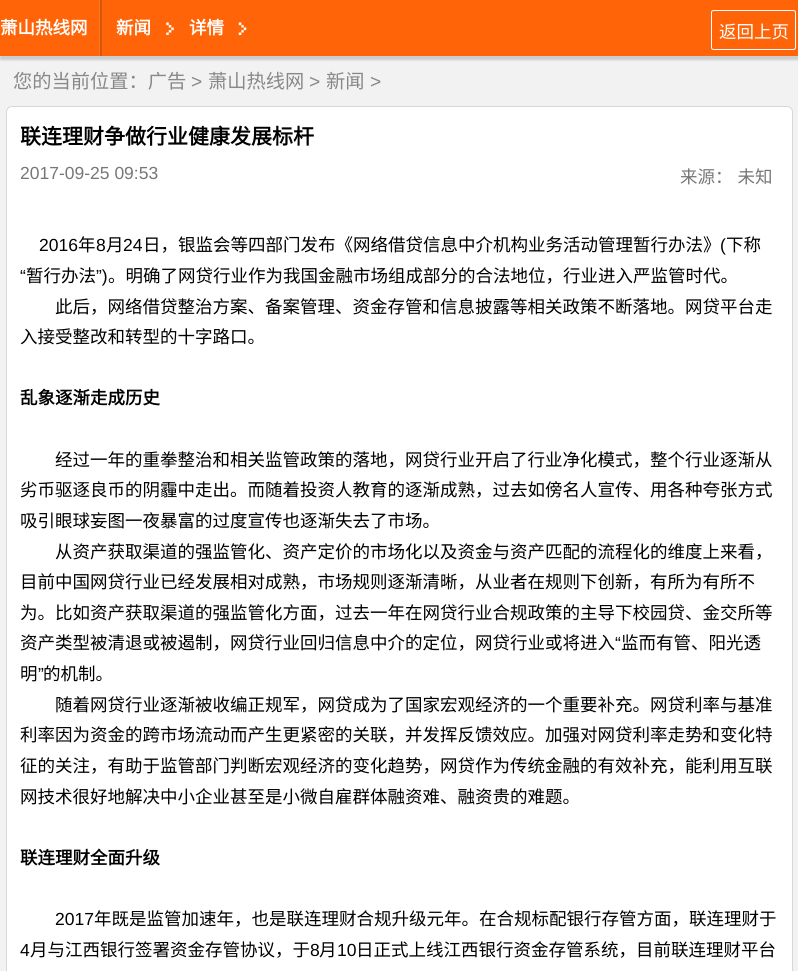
#include <cairo.h>
#include <math.h>
#include <stddef.h>

typedef struct { const char *family; double size; int italic, bold; unsigned color; } style_t;
static cairo_t *ctx;

static void ink(unsigned color) {
    cairo_set_source_rgb(ctx, (color >> 16) / 255.0, (color >> 8 & 255) / 255.0, (color & 255) / 255.0);
}

static void write(double x, double y, const char *s, const style_t *st) {
    cairo_select_font_face(ctx, st->family, st->italic ? CAIRO_FONT_SLANT_ITALIC : CAIRO_FONT_SLANT_NORMAL,
        st->bold ? CAIRO_FONT_WEIGHT_BOLD : CAIRO_FONT_WEIGHT_NORMAL);
    cairo_set_font_size(ctx, st->size);
    ink(st->color);
    cairo_move_to(ctx, x, y);
    cairo_show_text(ctx, s);
}

static void write_spaced(double x, double y, const char *s, double letter, double word) {
    cairo_move_to(ctx, x, y);
    while (*s) {
        char ch[5] = {0};
        int n = 0;
        do ch[n++] = *s++; while ((*s & 0xC0) == 0x80);
        cairo_show_text(ctx, ch);
        cairo_rel_move_to(ctx, letter + word * (*ch == ' '), 0);
    }
}

static void block(double x, double y, double w, double h, unsigned color) {
    ink(color);
    cairo_rectangle(ctx, x, y, w, h);
    cairo_fill(ctx);
}

static void round_path(double x, double y, double w, double h, double r) {
    cairo_new_sub_path(ctx);
    cairo_arc(ctx, x + w - r, y + h - r, r, 0, M_PI / 2);
    cairo_arc(ctx, x + r, y + h - r, r, M_PI / 2, M_PI);
    cairo_arc(ctx, x + r, y + r, r, M_PI, 1.5 * M_PI);
    cairo_arc(ctx, x + w - r, y + r, r, 1.5 * M_PI, 2 * M_PI);
    cairo_close_path(ctx);
}

static void blur_box(double x, double y, double w, double h, double r, double blur, double alpha) {
    cairo_push_group_with_content(ctx, CAIRO_CONTENT_ALPHA);
    cairo_set_operator(ctx, CAIRO_OPERATOR_SOURCE);
    for (int i = 15; i >= -15 && fmin(w, h) + blur * i / 3 > 0; i -= 2) {
        double e = blur * i / 6;
        cairo_set_source_rgba(ctx, 0, 0, 0, alpha * erfc((i - 1) / 8.5) / 2);
        round_path(x - e, y - e, w + 2 * e, h + 2 * e, fmax(0, fmin(r + e + blur * .6, fmin(w, h) / 2 + e)));
        cairo_fill(ctx);
    }
    cairo_pattern_t *soft = cairo_pop_group(ctx);
    cairo_mask(ctx, soft);
    cairo_pattern_destroy(soft);
}

static void paste(const char *path, double x, double y, double w, double h) {
    cairo_surface_t *image = cairo_image_surface_create_from_png(path);
    cairo_save(ctx);
    cairo_set_source_surface(ctx, image, x, y);
    cairo_rectangle(ctx, x, y, w, h);
    cairo_fill(ctx);
    cairo_restore(ctx);
    cairo_surface_destroy(image);
}

static const style_t s1 = {"Noto Sans CJK SC", 17.5, 0, 1, 0xffffff};
static const style_t s2 = {"Noto Sans CJK SC", 17.5, 0, 0, 0xffffff};
static const style_t s3 = {"Noto Sans CJK SC", 19.25, 0, 0, 0x888888};
static const style_t s4 = {"Liberation Sans", 19.25, 0, 0, 0x888888};
static const style_t s5 = {"Noto Sans CJK SC", 21, 0, 1, 0x000000};
static const style_t s6 = {"Liberation Sans", 17.5, 0, 0, 0x777777};
static const style_t s7 = {"Liberation Sans", 17.5, 0, 0, 0x000000};
static const style_t s8 = {"Noto Sans CJK SC", 17.5, 0, 0, 0x000000};
static const style_t s9 = {"Noto Sans CJK SC", 17.5, 0, 1, 0x000000};

int main(void) {
    cairo_surface_t *surface = cairo_image_surface_create(CAIRO_FORMAT_RGB24, 798, 971);
    ctx = cairo_create(surface);
    cairo_font_options_t *options = cairo_font_options_create();
    cairo_font_options_set_hint_metrics(options, CAIRO_HINT_METRICS_OFF);
    cairo_font_options_set_hint_style(options, CAIRO_HINT_STYLE_NONE);
    cairo_set_font_options(ctx, options);
    cairo_set_miter_limit(ctx, 4);
    ink(0xf2f2f2);
    cairo_paint(ctx);
    ink(0xcccccc);
    blur_box(0, 4, 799, 56, 0, 1, 1);
    block(0, 0, 798, 56, 0xff6508);
    write(0, 34, "萧山热线网", &s1);
    block(100, 0, 2, 56, 0xd1570e);
    block(99, 0, 1, 56, 0xff731f);
    paste("pic1.png", 166, 22, 8, 13);
    write(116, 34, "新闻", &s1);
    paste("pic2.png", 238, 22, 9, 13);
    write(189, 34, "详情", &s1);
    round_path(711.5, 10.5, 84, 39, 2);
    cairo_set_line_width(ctx, 1);
    cairo_stroke(ctx);
    write(719, 38, "返回上页", &s2);
    write(13, 88, "您的当前位置：广告", &s3);
    write(191, 88, ">", &s4);
    write(208, 88, "萧山热线网", &s3);
    write(309, 88, ">", &s4);
    write(326, 88, "新闻", &s3);
    write(370, 88, ">", &s4);
    ink(0xffffff);
    round_path(6.5, 106.5, 786, 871, 5.5);
    cairo_fill_preserve(ctx);
    ink(0xd7d7d7);
    cairo_stroke(ctx);
    write(20, 144, "联连理财争做行业健康发展标杆", &s5);
    write(20, 179, "2017-09-25 09:53", &s6);
    cairo_select_font_face(ctx, "Noto Sans CJK SC", CAIRO_FONT_SLANT_NORMAL, CAIRO_FONT_WEIGHT_NORMAL);
    write_spaced(680, 183, "来源： 未知", 0, 1);
    write(39, 251, "2016", &s7);
    write(78, 251, "年", &s8);
    write(96, 251, "8", &s7);
    write(106, 251, "月", &s8);
    write(123, 251, "24", &s7);
    write(143, 251, "日，银监会等四部门发布《网络借贷信息中介机构业务活动管理暂行办法》", &s8);
    write(720, 251, "(", &s7);
    write(726, 251, "下称", &s8);
    write(20, 282, "“", &s7);
    write(26, 282, "暂行办法", &s8);
    write(96, 282, "”)", &s7);
    write(108, 282, "。明确了网贷行业作为我国金融市场组成部分的合法地位，行业进入严监管时代。", &s8);
    write(55, 313, "此后，网络借贷整治方案、备案管理、资金存管和信息披露等相关政策不断落地。网贷平台走", &s8);
    write(20, 343, "入接受整改和转型的十字路口。", &s8);
    write(20, 404, "乱象逐渐走成历史", &s9);
    write(55, 466, "经过一年的重拳整治和相关监管政策的落地，网贷行业开启了行业净化模式，整个行业逐渐从", &s8);
    write(20, 496, "劣币驱逐良币的阴霾中走出。而随着投资人教育的逐渐成熟，过去如傍名人宣传、用各种夸张方式", &s8);
    write(20, 527, "吸引眼球妄图一夜暴富的过度宣传也逐渐失去了市场。", &s8);
    write(55, 558, "从资产获取渠道的强监管化、资产定价的市场化以及资金与资产匹配的流程化的维度上来看，", &s8);
    write(20, 588, "目前中国网贷行业已经发展相对成熟，市场规则逐渐清晰，从业者在规则下创新，有所为有所不", &s8);
    write(20, 619, "为。比如资产获取渠道的强监管化方面，过去一年在网贷行业合规政策的主导下校园贷、金交所等", &s8);
    write(20, 649, "资产类型被清退或被遏制，网贷行业回归信息中介的定位，网贷行业或将进入", &s8);
    write(615, 649, "“", &s7);
    write(621, 649, "监而有管、阳光透", &s8);
    write(20, 680, "明", &s8);
    write(38, 680, "”", &s7);
    write(43, 680, "的机制。", &s8);
    write(55, 711, "随着网贷行业逐渐被收编正规军，网贷成为了国家宏观经济的一个重要补充。网贷利率与基准", &s8);
    write(20, 741, "利率因为资金的跨市场流动而产生更紧密的关联，并发挥反馈效应。加强对网贷利率走势和变化特", &s8);
    write(20, 772, "征的关注，有助于监管部门判断宏观经济的变化趋势，网贷作为传统金融的有效补充，能利用互联", &s8);
    write(20, 803, "网技术很好地解决中小企业甚至是小微自雇群体融资难、融资贵的难题。", &s8);
    write(20, 864, "联连理财全面升级", &s9);
    write(55, 925, "2017", &s7);
    write(94, 925, "年既是监管加速年，也是联连理财合规升级元年。在合规标配银行存管方面，联连理财于", &s8);
    write(20, 956, "4", &s7);
    write(30, 956, "月与江西银行签署资金存管协议，于", &s8);
    write(310, 956, "8", &s7);
    write(319, 956, "月", &s8);
    write(337, 956, "10", &s7);
    write(356, 956, "日正式上线江西银行资金存管系统，目前联连理财平台", &s8);
    cairo_surface_write_to_png(surface, "screenshot.png");
    cairo_font_options_destroy(options);
    cairo_destroy(ctx);
    cairo_surface_destroy(surface);
    return 0;
}
